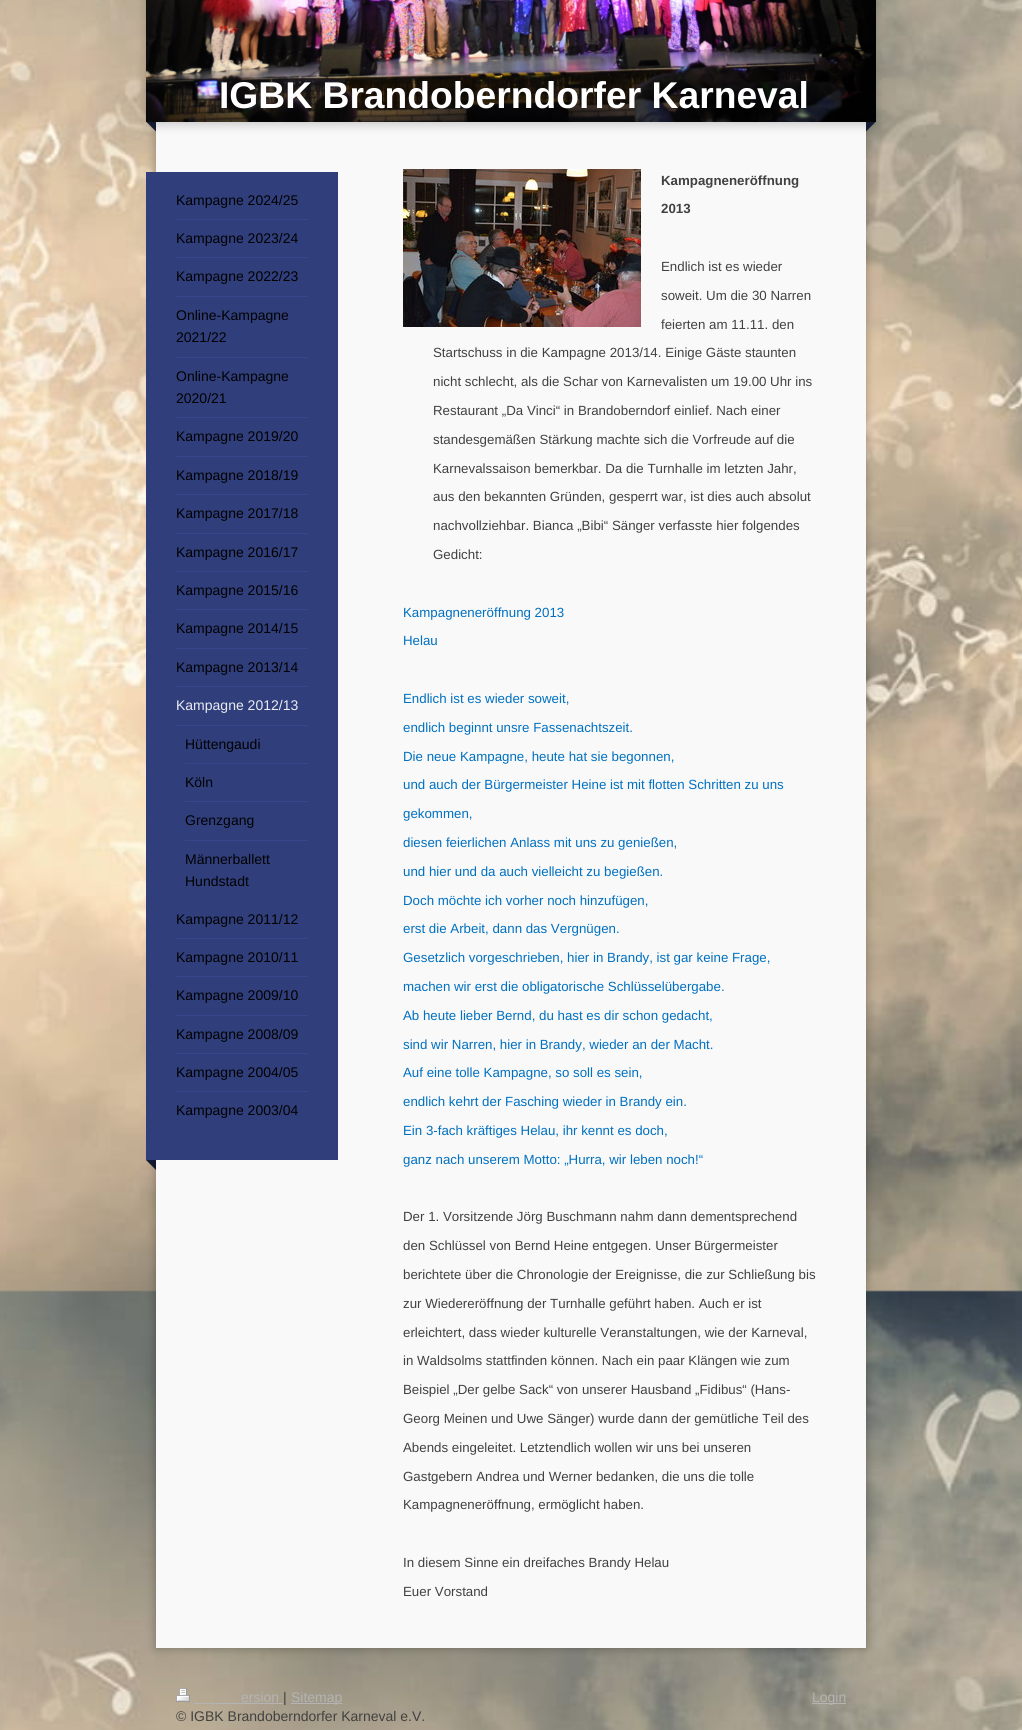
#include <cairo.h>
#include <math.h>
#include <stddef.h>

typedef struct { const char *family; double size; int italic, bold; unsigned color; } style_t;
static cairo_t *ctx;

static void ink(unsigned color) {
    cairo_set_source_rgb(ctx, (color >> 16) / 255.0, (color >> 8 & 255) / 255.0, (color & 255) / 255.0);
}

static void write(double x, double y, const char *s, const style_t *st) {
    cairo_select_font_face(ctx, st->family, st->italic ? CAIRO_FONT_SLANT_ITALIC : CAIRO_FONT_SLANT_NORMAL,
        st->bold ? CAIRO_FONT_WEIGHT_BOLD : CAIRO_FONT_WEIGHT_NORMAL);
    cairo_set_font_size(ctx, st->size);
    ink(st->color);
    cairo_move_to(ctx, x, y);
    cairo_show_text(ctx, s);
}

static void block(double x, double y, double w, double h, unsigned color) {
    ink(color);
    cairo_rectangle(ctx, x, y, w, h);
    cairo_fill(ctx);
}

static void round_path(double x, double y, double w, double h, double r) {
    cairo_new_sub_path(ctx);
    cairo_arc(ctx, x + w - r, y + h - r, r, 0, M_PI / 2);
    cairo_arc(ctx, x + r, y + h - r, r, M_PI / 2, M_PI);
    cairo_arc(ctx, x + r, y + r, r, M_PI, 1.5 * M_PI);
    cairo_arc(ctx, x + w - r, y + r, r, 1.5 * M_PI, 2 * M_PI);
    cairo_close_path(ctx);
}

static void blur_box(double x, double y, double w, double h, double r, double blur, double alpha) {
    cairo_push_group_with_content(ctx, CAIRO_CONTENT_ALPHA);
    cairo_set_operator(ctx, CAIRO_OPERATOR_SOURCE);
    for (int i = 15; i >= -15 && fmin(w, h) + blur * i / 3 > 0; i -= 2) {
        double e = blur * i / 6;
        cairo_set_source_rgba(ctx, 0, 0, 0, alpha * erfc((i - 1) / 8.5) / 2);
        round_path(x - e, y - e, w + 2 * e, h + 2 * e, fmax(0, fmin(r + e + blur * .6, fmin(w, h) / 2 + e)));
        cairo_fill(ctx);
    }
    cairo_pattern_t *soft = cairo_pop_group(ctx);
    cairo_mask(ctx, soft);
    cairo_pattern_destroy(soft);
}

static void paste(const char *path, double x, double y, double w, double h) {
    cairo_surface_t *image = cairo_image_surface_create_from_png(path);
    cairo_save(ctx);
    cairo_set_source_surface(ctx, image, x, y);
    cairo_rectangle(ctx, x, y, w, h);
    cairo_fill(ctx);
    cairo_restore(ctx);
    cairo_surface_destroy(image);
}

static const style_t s1 = {"Liberation Sans", 37.25, 0, 1, 0xffffff};
static const style_t s2 = {"Liberation Sans", 14, 0, 0, 0x000000};
static const style_t s3 = {"Liberation Sans", 14, 0, 0, 0xeaecf2};
static const style_t s4 = {"Liberation Sans", 13.3, 0, 1, 0x414141};
static const style_t s5 = {"Liberation Sans", 13.3, 0, 0, 0x414141};
static const style_t s6 = {"Liberation Sans", 13.3, 0, 0, 0x0070c0};
static const style_t s7 = {"Liberation Sans", 14, 0, 0, 0xb4b4b4};
static const style_t s8 = {"Liberation Sans", 14, 0, 0, 0x414141};

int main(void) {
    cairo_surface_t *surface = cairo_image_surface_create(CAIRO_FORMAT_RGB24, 1022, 1730);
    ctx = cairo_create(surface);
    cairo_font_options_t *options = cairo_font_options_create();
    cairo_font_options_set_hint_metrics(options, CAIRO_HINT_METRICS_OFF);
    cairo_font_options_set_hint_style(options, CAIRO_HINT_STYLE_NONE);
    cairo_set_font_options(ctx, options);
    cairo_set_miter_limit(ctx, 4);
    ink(0xffffff);
    cairo_paint(ctx);
    paste("pic1.png", 0, 0, 1022, 1730);
    ink(0x141a32);
    cairo_new_path(ctx);
    cairo_move_to(ctx, 156, 1150);
    cairo_line_to(ctx, 156, 1170);
    cairo_line_to(ctx, 146, 1160);
    cairo_close_path(ctx);
    cairo_fill(ctx);
    ink(0x000000);
    blur_box(156, -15, 710, 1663, 0, 5, 0.3);
    block(156, 122, 710, 1526, 0xf9f9f9);
    ink(0x000000);
    blur_box(146, -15, 730, 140, 0, 5, 0.2);
    ink(0x141a32);
    cairo_new_path(ctx);
    cairo_move_to(ctx, 156, 111.5);
    cairo_line_to(ctx, 156, 131.5);
    cairo_line_to(ctx, 146, 121.5);
    cairo_close_path(ctx);
    cairo_fill(ctx);
    cairo_new_path(ctx);
    cairo_move_to(ctx, 866, 131.5);
    cairo_line_to(ctx, 866, 111.5);
    cairo_line_to(ctx, 876, 121.5);
    cairo_close_path(ctx);
    cairo_fill(ctx);
    paste("pic2.png", 146, 0, 730, 122);
    write(219, 108, "IGBK Brandoberndorfer Karneval", &s1);
    block(146, 172, 192, 988, 0x303f7c);
    block(176, 219, 132, 1, 0x36478d);
    write(176, 205, "Kampagne 2024/25", &s2);
    block(176, 257, 132, 1, 0x36478d);
    write(176, 243, "Kampagne 2023/24", &s2);
    block(176, 296, 132, 1, 0x36478d);
    write(176, 281, "Kampagne 2022/23", &s2);
    block(176, 357, 132, 1, 0x36478d);
    write(176, 320, "Online-Kampagne", &s2);
    write(176, 342, "2021/22", &s2);
    block(176, 417, 132, 1, 0x36478d);
    write(176, 381, "Online-Kampagne", &s2);
    write(176, 403, "2020/21", &s2);
    block(176, 456, 132, 1, 0x36478d);
    write(176, 441, "Kampagne 2019/20", &s2);
    block(176, 494, 132, 1, 0x36478d);
    write(176, 480, "Kampagne 2018/19", &s2);
    block(176, 533, 132, 1, 0x36478d);
    write(176, 518, "Kampagne 2017/18", &s2);
    block(176, 571, 132, 1, 0x36478d);
    write(176, 557, "Kampagne 2016/17", &s2);
    block(176, 609, 132, 1, 0x36478d);
    write(176, 595, "Kampagne 2015/16", &s2);
    block(176, 648, 132, 1, 0x36478d);
    write(176, 633, "Kampagne 2014/15", &s2);
    block(176, 686, 132, 1, 0x36478d);
    write(176, 672, "Kampagne 2013/14", &s2);
    block(176, 725, 132, 1, 0x36478d);
    write(176, 710, "Kampagne 2012/13", &s3);
    block(185, 763, 123, 1, 0x36478d);
    write(185, 749, "Hüttengaudi", &s2);
    block(185, 801, 123, 1, 0x36478d);
    write(185, 787, "Köln", &s2);
    block(185, 840, 123, 1, 0x36478d);
    write(185, 825, "Grenzgang", &s2);
    write(185, 864, "Männerballett", &s2);
    write(185, 886, "Hundstadt", &s2);
    block(176, 938, 132, 1, 0x36478d);
    write(176, 924, "Kampagne 2011/12", &s2);
    block(176, 976, 132, 1, 0x36478d);
    write(176, 962, "Kampagne 2010/11", &s2);
    block(176, 1015, 132, 1, 0x36478d);
    write(176, 1000, "Kampagne 2009/10", &s2);
    block(176, 1053, 132, 1, 0x36478d);
    write(176, 1039, "Kampagne 2008/09", &s2);
    block(176, 1091, 132, 1, 0x36478d);
    write(176, 1077, "Kampagne 2004/05", &s2);
    write(176, 1115, "Kampagne 2003/04", &s2);
    paste("pic3.png", 403, 169, 238, 158);
    write(661, 185, "Kampagneneröffnung", &s4);
    write(661, 213, "2013", &s4);
    write(661, 271, "Endlich ist es wieder", &s5);
    write(661, 300, "soweit. Um die 30 Narren", &s5);
    write(661, 329, "feierten am 11.11. den", &s5);
    write(433, 357, "Startschuss in die Kampagne 2013/14. Einige Gäste staunten", &s5);
    write(433, 386, "nicht schlecht, als die Schar von Karnevalisten um 19.00 Uhr ins", &s5);
    write(433, 415, "Restaurant „Da Vinci“ in Brandoberndorf einlief. Nach einer", &s5);
    write(433, 444, "standesgemäßen Stärkung machte sich die Vorfreude auf die", &s5);
    write(433, 473, "Karnevalssaison bemerkbar. Da die Turnhalle im letzten Jahr,", &s5);
    write(433, 501, "aus den bekannten Gründen, gesperrt war, ist dies auch absolut", &s5);
    write(433, 530, "nachvollziehbar. Bianca „Bibi“ Sänger verfasste hier folgendes", &s5);
    write(433, 559, "Gedicht:", &s5);
    write(403, 617, "Kampagneneröffnung 2013", &s6);
    write(403, 645, "Helau", &s6);
    write(403, 703, "Endlich ist es wieder soweit,", &s6);
    write(403, 732, "endlich beginnt unsre Fassenachtszeit.", &s6);
    write(403, 761, "Die neue Kampagne, heute hat sie begonnen,", &s6);
    write(403, 789, "und auch der Bürgermeister Heine ist mit flotten Schritten zu uns", &s6);
    write(403, 818, "gekommen,", &s6);
    write(403, 847, "diesen feierlichen Anlass mit uns zu genießen,", &s6);
    write(403, 876, "und hier und da auch vielleicht zu begießen.", &s6);
    write(403, 905, "Doch möchte ich vorher noch hinzufügen,", &s6);
    write(403, 933, "erst die Arbeit, dann das Vergnügen.", &s6);
    write(403, 962, "Gesetzlich vorgeschrieben, hier in Brandy, ist gar keine Frage,", &s6);
    write(403, 991, "machen wir erst die obligatorische Schlüsselübergabe.", &s6);
    write(403, 1020, "Ab heute lieber Bernd, du hast es dir schon gedacht,", &s6);
    write(403, 1049, "sind wir Narren, hier in Brandy, wieder an der Macht.", &s6);
    write(403, 1077, "Auf eine tolle Kampagne, so soll es sein,", &s6);
    write(403, 1106, "endlich kehrt der Fasching wieder in Brandy ein.", &s6);
    write(403, 1135, "Ein 3-fach kräftiges Helau, ihr kennt es doch,", &s6);
    write(403, 1164, "ganz nach unserem Motto: „Hurra, wir leben noch!“", &s6);
    write(403, 1221, "Der 1. Vorsitzende Jörg Buschmann nahm dann dementsprechend", &s5);
    write(403, 1250, "den Schlüssel von Bernd Heine entgegen. Unser Bürgermeister", &s5);
    write(403, 1279, "berichtete über die Chronologie der Ereignisse, die zur Schließung bis", &s5);
    write(403, 1308, "zur Wiedereröffnung der Turnhalle geführt haben. Auch er ist", &s5);
    write(403, 1337, "erleichtert, dass wieder kulturelle Veranstaltungen, wie der Karneval,", &s5);
    write(403, 1365, "in Waldsolms stattfinden können. Nach ein paar Klängen wie zum", &s5);
    write(403, 1394, "Beispiel „Der gelbe Sack“ von unserer Hausband „Fidibus“ (Hans-", &s5);
    write(403, 1423, "Georg Meinen und Uwe Sänger) wurde dann der gemütliche Teil des", &s5);
    write(403, 1452, "Abends eingeleitet. Letztendlich wollen wir uns bei unseren", &s5);
    write(403, 1481, "Gastgebern Andrea und Werner bedanken, die uns die tolle", &s5);
    write(403, 1509, "Kampagneneröffnung, ermöglicht haben.", &s5);
    write(403, 1567, "In diesem Sinne ein dreifaches Brandy Helau", &s5);
    write(403, 1596, "Euer Vorstand", &s5);
    paste("pic4.png", 176, 1688, 14, 14);
    write(241, 1702, "ersion", &s7);
    block(194, 1703, 89, 1, 0xb4b4b4);
    write(283, 1702, "|", &s8);
    block(291, 1703, 51, 1, 0xb4b4b4);
    write(291, 1702, "Sitemap", &s7);
    write(176, 1721, "© IGBK Brandoberndorfer Karneval e.V.", &s8);
    block(812, 1703, 34, 1, 0xb4b4b4);
    write(812, 1702, "Login", &s7);
    cairo_surface_write_to_png(surface, "screenshot.png");
    cairo_font_options_destroy(options);
    cairo_destroy(ctx);
    cairo_surface_destroy(surface);
    return 0;
}
